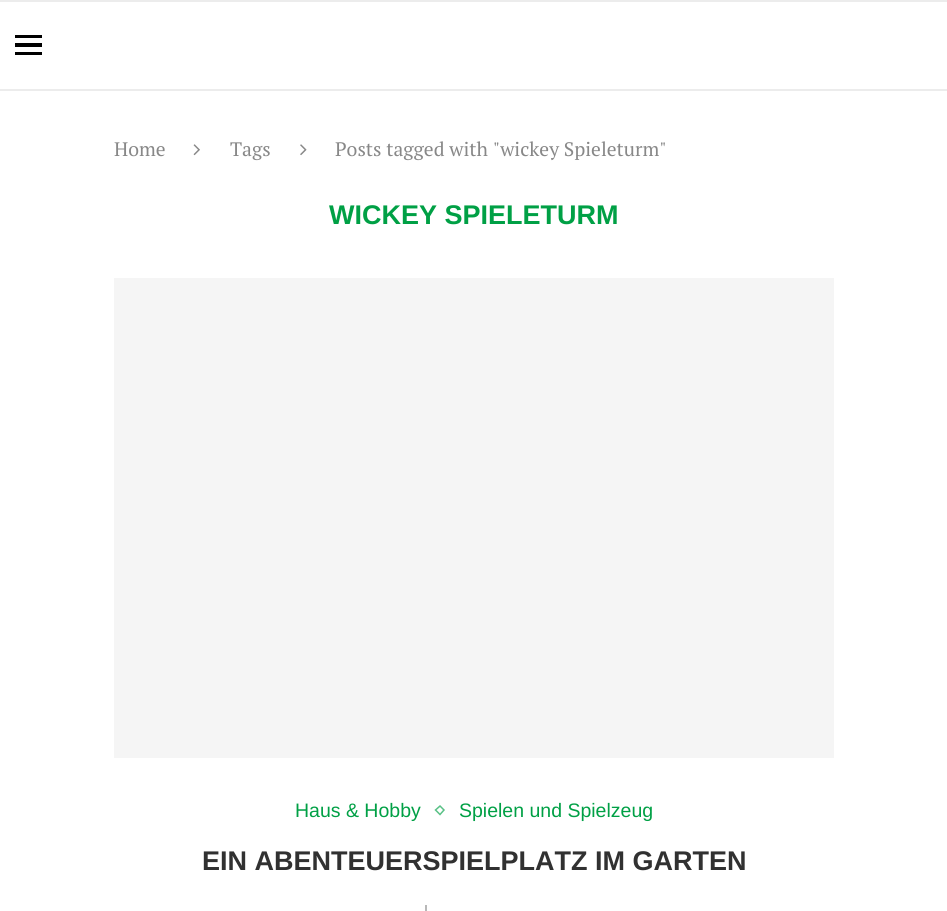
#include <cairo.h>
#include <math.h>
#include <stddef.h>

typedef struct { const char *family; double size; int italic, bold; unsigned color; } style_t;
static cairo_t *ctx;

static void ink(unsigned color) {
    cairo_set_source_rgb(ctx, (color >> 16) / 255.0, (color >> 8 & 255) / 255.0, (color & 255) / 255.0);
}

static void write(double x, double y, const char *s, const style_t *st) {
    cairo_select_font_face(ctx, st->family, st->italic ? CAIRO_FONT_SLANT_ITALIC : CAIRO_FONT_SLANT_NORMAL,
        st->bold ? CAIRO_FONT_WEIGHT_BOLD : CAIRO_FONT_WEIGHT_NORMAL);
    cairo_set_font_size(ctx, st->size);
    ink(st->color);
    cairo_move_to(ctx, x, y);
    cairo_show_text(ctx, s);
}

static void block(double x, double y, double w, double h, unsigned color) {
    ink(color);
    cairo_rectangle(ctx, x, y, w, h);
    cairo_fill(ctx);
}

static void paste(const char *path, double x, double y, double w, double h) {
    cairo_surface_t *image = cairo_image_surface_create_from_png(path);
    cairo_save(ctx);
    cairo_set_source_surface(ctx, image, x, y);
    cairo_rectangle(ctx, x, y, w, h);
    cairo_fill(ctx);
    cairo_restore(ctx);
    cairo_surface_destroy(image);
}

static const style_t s1 = {"PT Serif", 19.5, 0, 0, 0x888888};
static const style_t s2 = {"Liberation Sans", 27, 0, 1, 0x00a045};
static const style_t s3 = {"Liberation Sans", 19.5, 0, 0, 0x00a045};
static const style_t s4 = {"Liberation Sans", 27, 0, 1, 0x313131};

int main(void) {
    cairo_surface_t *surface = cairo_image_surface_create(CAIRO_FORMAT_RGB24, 947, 911);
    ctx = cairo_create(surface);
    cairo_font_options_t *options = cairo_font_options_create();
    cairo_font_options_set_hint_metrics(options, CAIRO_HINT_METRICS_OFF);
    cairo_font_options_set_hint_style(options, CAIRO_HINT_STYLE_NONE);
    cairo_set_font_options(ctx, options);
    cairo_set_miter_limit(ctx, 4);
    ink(0xffffff);
    cairo_paint(ctx);
    block(0, 0, 947, 2, 0xececec);
    block(0, 89, 947, 2, 0xececec);
    block(15, 35, 27, 3, 0x000000);
    block(15, 43, 27, 4, 0x000000);
    block(15, 52, 27, 3, 0x000000);
    write(114, 156, "Home", &s1);
    paste("pic1.png", 193, 144, 7, 12);
    write(230, 156, "Tags", &s1);
    paste("pic2.png", 300, 144, 7, 12);
    write(335, 156, "Posts tagged with \"wickey Spieleturm\"", &s1);
    write(329, 224, "WICKEY SPIELETURM", &s2);
    block(114, 278, 720, 480, 0xf5f5f5);
    write(295, 817, "Haus & Hobby", &s3);
    cairo_new_path(ctx);
    cairo_move_to(ctx, 440, 806);
    cairo_line_to(ctx, 444, 810);
    cairo_line_to(ctx, 440, 814.5);
    cairo_line_to(ctx, 435.5, 810);
    cairo_close_path(ctx);
    ink(0x59c186);
    cairo_set_line_width(ctx, 1.5);
    cairo_stroke(ctx);
    write(459, 817, "Spielen und Spielzeug", &s3);
    write(202, 870, "EIN ABENTEUERSPIELPLATZ IM GARTEN", &s4);
    block(425, 905, 2, 6, 0xb8b8b8);
    cairo_surface_write_to_png(surface, "screenshot.png");
    cairo_font_options_destroy(options);
    cairo_destroy(ctx);
    cairo_surface_destroy(surface);
    return 0;
}
